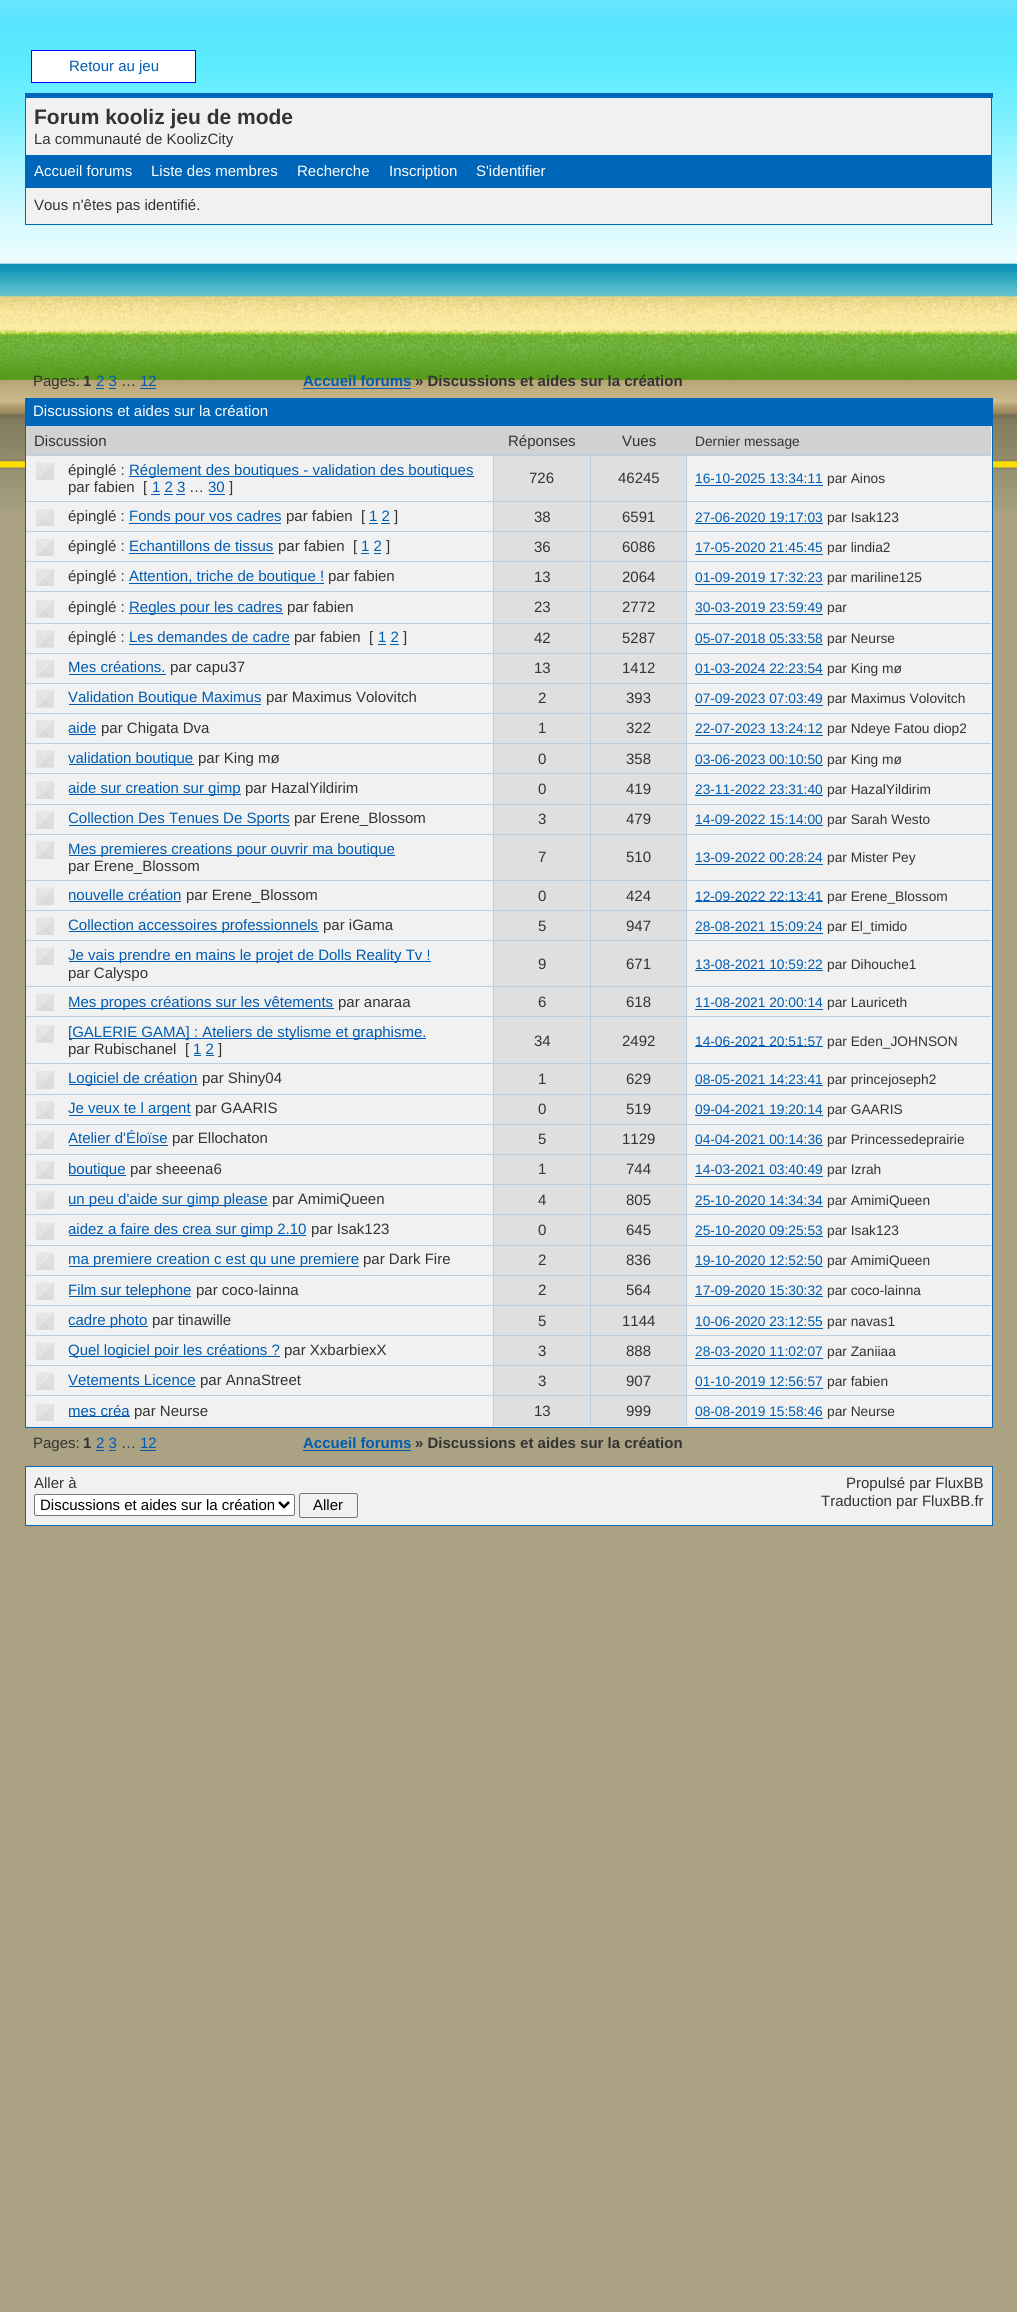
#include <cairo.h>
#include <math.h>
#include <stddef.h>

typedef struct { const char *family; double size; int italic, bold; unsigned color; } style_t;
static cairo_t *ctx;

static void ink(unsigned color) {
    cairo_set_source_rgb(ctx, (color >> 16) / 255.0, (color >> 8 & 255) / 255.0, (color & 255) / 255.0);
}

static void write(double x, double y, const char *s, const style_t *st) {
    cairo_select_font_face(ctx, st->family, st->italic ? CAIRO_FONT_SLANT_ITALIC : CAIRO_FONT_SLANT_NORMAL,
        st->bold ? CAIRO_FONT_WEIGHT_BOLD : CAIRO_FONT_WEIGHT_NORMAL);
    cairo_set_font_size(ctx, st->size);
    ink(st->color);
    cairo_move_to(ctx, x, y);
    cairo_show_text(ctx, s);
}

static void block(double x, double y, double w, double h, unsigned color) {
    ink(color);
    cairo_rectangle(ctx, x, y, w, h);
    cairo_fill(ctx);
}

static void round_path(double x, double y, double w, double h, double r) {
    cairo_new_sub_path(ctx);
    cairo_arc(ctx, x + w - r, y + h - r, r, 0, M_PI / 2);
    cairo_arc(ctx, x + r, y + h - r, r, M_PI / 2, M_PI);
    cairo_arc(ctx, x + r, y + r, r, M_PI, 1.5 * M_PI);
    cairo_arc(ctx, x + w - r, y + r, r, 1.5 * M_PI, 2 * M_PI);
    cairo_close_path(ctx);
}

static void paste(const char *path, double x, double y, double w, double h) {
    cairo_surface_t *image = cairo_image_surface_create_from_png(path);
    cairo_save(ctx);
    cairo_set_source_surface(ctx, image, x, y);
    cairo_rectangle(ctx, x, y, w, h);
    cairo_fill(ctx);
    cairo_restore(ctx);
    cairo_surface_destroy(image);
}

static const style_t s1 = {"Liberation Sans", 15, 0, 0, 0x005cb1};
static const style_t s2 = {"Liberation Sans", 21, 0, 1, 0x333333};
static const style_t s3 = {"Liberation Sans", 15, 0, 0, 0x333333};
static const style_t s4 = {"Liberation Sans", 15, 0, 0, 0xffffff};
static const style_t s5 = {"Liberation Sans", 15, 0, 1, 0x333333};
static const style_t s6 = {"Liberation Sans", 15, 0, 1, 0x005cb1};
static const style_t s7 = {"Liberation Sans", 13.75, 0, 0, 0x333333};
static const style_t s8 = {"Liberation Sans", 13.75, 0, 0, 0x005cb1};
static const style_t s9 = {"Liberation Sans", 15, 0, 0, 0x000000};

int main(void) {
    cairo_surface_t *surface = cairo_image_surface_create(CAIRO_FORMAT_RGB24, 1017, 2312);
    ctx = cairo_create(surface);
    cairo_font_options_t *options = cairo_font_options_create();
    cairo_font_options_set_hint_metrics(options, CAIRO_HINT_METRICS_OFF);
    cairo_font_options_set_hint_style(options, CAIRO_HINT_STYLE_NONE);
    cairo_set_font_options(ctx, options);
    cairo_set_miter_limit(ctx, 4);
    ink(0xaaa282);
    cairo_paint(ctx);
    paste("pic1.png", 0, 0, 1017, 510);
    ink(0xffffff);
    cairo_rectangle(ctx, 31.5, 50.5, 164, 32);
    cairo_fill_preserve(ctx);
    ink(0x0000ff);
    cairo_set_line_width(ctx, 1);
    cairo_stroke(ctx);
    write(69, 71, "Retour au jeu", &s1);
    block(26, 98, 965, 126, 0xf1f1f1);
    block(25, 93, 968, 5, 0x0066b9);
    block(991, 93, 1, 132, 0x0066b9);
    block(25, 224, 968, 1, 0x0066b9);
    block(25, 93, 1, 132, 0x0066b9);
    write(34, 124, "Forum kooliz jeu de mode", &s2);
    write(34, 144, "La communauté de KoolizCity", &s3);
    block(26, 155, 965, 33, 0x0066b9);
    write(34, 176, "Accueil forums", &s4);
    write(151, 176, "Liste des membres", &s4);
    write(297, 176, "Recherche", &s4);
    write(389, 176, "Inscription", &s4);
    write(476, 176, "S'identifier", &s4);
    write(34, 210, "Vous n'êtes pas identifié.", &s3);
    write(33, 386, "Pages:", &s3);
    write(83, 386, "1", &s5);
    write(96, 386, "2 3", &s1);
    block(96, 388, 8, 1, 0x005cb1);
    write(121, 386, "…", &s3);
    write(140, 386, "12", &s1);
    block(140, 388, 16, 1, 0x005cb1);
    block(109, 388, 7, 1, 0x005cb1);
    write(303, 386, "Accueil forums", &s6);
    block(303, 388, 108, 1, 0x005cb1);
    write(415, 386, "» Discussions et aides sur la création", &s5);
    block(25, 398, 968, 27, 0x0066b9);
    write(33, 416, "Discussions et aides sur la création", &s4);
    ink(0xf1f1f1);
    cairo_rectangle(ctx, 25.5, 425.5, 967, 1002);
    cairo_fill_preserve(ctx);
    ink(0x0066b9);
    cairo_stroke(ctx);
    block(26, 426, 467, 29, 0xd1d1d1);
    write(34, 446, "Discussion", &s3);
    block(493, 426, 193, 29, 0xd1d1d1);
    write(508, 446, "Réponses", &s3);
    write(622, 446, "Vues", &s3);
    block(686, 426, 305, 29, 0xd1d1d1);
    write(695, 446, "Dernier message", &s7);
    block(26, 455, 467, 1, 0xbbcede);
    ink(0xe6e6e6);
    cairo_new_path(ctx);
    cairo_move_to(ctx, 36, 462.5);
    cairo_line_to(ctx, 54, 462.5);
    cairo_line_to(ctx, 45, 471);
    cairo_close_path(ctx);
    cairo_fill(ctx);
    ink(0xdedede);
    cairo_new_path(ctx);
    cairo_move_to(ctx, 54, 462.5);
    cairo_line_to(ctx, 54, 480);
    cairo_line_to(ctx, 45, 471);
    cairo_close_path(ctx);
    cairo_fill(ctx);
    ink(0xdadada);
    cairo_new_path(ctx);
    cairo_move_to(ctx, 54, 480);
    cairo_line_to(ctx, 36, 480);
    cairo_line_to(ctx, 45, 471);
    cairo_close_path(ctx);
    cairo_fill(ctx);
    ink(0xe2e2e2);
    cairo_new_path(ctx);
    cairo_move_to(ctx, 36, 480);
    cairo_line_to(ctx, 36, 462.5);
    cairo_line_to(ctx, 45, 471);
    cairo_close_path(ctx);
    cairo_fill(ctx);
    write(68, 475, "épinglé :", &s3);
    block(129, 476, 345, 1, 0x005cb1);
    write(129, 475, "Réglement des boutiques - validation des boutiques", &s1);
    write(68, 492, "par fabien", &s3);
    write(143, 492, "[", &s3);
    write(152, 492, "1 2 3", &s1);
    block(151, 494, 9, 1, 0x005cb1);
    write(189, 492, "…", &s3);
    write(208, 492, "30", &s1);
    block(209, 494, 16, 1, 0x005cb1);
    write(229, 492, "]", &s3);
    block(164, 494, 9, 1, 0x005cb1);
    block(176, 494, 9, 1, 0x005cb1);
    block(494, 456, 96, 45, 0xdedfdf);
    block(493, 455, 193, 1, 0xbbcede);
    block(493, 455, 1, 46, 0xbbcede);
    write(529, 483, "726", &s3);
    block(591, 456, 95, 45, 0xdedfdf);
    block(590, 455, 1, 46, 0xbbcede);
    write(618, 483, "46245", &s3);
    block(686, 455, 305, 1, 0xbbcede);
    block(686, 455, 1, 46, 0xbbcede);
    write(695, 483, "16-10-2025 13:34:11", &s8);
    block(695, 485, 128, 1, 0x005cb1);
    write(827, 483, "par Ainos", &s7);
    block(26, 501, 467, 1, 0xbbcede);
    ink(0xe6e6e6);
    cairo_new_path(ctx);
    cairo_move_to(ctx, 36, 509);
    cairo_line_to(ctx, 54, 509);
    cairo_line_to(ctx, 45, 517.5);
    cairo_close_path(ctx);
    cairo_fill(ctx);
    ink(0xdedede);
    cairo_new_path(ctx);
    cairo_move_to(ctx, 54, 509);
    cairo_line_to(ctx, 54, 526);
    cairo_line_to(ctx, 45, 517.5);
    cairo_close_path(ctx);
    cairo_fill(ctx);
    ink(0xdadada);
    cairo_new_path(ctx);
    cairo_move_to(ctx, 54, 526);
    cairo_line_to(ctx, 36, 526);
    cairo_line_to(ctx, 45, 517.5);
    cairo_close_path(ctx);
    cairo_fill(ctx);
    ink(0xe2e2e2);
    cairo_new_path(ctx);
    cairo_move_to(ctx, 36, 526);
    cairo_line_to(ctx, 36, 509);
    cairo_line_to(ctx, 45, 517.5);
    cairo_close_path(ctx);
    cairo_fill(ctx);
    write(68, 521, "épinglé :", &s3);
    block(129, 523, 152, 1, 0x005cb1);
    write(129, 521, "Fonds pour vos cadres", &s1);
    write(286, 521, "par fabien", &s3);
    write(361, 521, "[", &s3);
    write(369, 521, "1 2", &s1);
    block(369, 523, 9, 1, 0x005cb1);
    write(394, 521, "]", &s3);
    block(381, 523, 9, 1, 0x005cb1);
    block(494, 502, 96, 29, 0xdedfdf);
    block(493, 501, 193, 1, 0xbbcede);
    block(493, 501, 1, 30, 0xbbcede);
    write(534, 522, "38", &s3);
    block(591, 502, 95, 29, 0xdedfdf);
    block(590, 501, 1, 30, 0xbbcede);
    write(622, 522, "6591", &s3);
    block(686, 501, 305, 1, 0xbbcede);
    block(686, 501, 1, 30, 0xbbcede);
    write(695, 522, "27-06-2020 19:17:03", &s8);
    block(695, 523, 128, 1, 0x005cb1);
    write(827, 522, "par Isak123", &s7);
    block(26, 531, 467, 1, 0xbbcede);
    ink(0xe6e6e6);
    cairo_new_path(ctx);
    cairo_move_to(ctx, 36, 539);
    cairo_line_to(ctx, 54, 539);
    cairo_line_to(ctx, 45, 547.5);
    cairo_close_path(ctx);
    cairo_fill(ctx);
    ink(0xdedede);
    cairo_new_path(ctx);
    cairo_move_to(ctx, 54, 539);
    cairo_line_to(ctx, 54, 556);
    cairo_line_to(ctx, 45, 547.5);
    cairo_close_path(ctx);
    cairo_fill(ctx);
    ink(0xdadada);
    cairo_new_path(ctx);
    cairo_move_to(ctx, 54, 556);
    cairo_line_to(ctx, 36, 556);
    cairo_line_to(ctx, 45, 547.5);
    cairo_close_path(ctx);
    cairo_fill(ctx);
    ink(0xe2e2e2);
    cairo_new_path(ctx);
    cairo_move_to(ctx, 36, 556);
    cairo_line_to(ctx, 36, 539);
    cairo_line_to(ctx, 45, 547.5);
    cairo_close_path(ctx);
    cairo_fill(ctx);
    write(68, 551, "épinglé :", &s3);
    write(129, 551, "Echantillons de tissus", &s1);
    block(129, 553, 145, 1, 0x005cb1);
    write(278, 551, "par fabien", &s3);
    write(353, 551, "[", &s3);
    write(361, 551, "1 2", &s1);
    block(361, 553, 8, 1, 0x005cb1);
    write(386, 551, "]", &s3);
    block(374, 553, 7, 1, 0x005cb1);
    block(494, 532, 96, 29, 0xdedfdf);
    block(493, 531, 193, 1, 0xbbcede);
    block(493, 531, 1, 30, 0xbbcede);
    write(534, 552, "36", &s3);
    block(591, 532, 95, 29, 0xdedfdf);
    block(590, 531, 1, 30, 0xbbcede);
    write(622, 552, "6086", &s3);
    block(686, 531, 305, 1, 0xbbcede);
    block(686, 531, 1, 30, 0xbbcede);
    write(695, 552, "17-05-2020 21:45:45", &s8);
    block(695, 554, 128, 1, 0x005cb1);
    write(827, 552, "par lindia2", &s7);
    block(26, 561, 467, 1, 0xbbcede);
    ink(0xe6e6e6);
    cairo_new_path(ctx);
    cairo_move_to(ctx, 36, 569);
    cairo_line_to(ctx, 54, 569);
    cairo_line_to(ctx, 45, 577.5);
    cairo_close_path(ctx);
    cairo_fill(ctx);
    ink(0xdedede);
    cairo_new_path(ctx);
    cairo_move_to(ctx, 54, 569);
    cairo_line_to(ctx, 54, 586);
    cairo_line_to(ctx, 45, 577.5);
    cairo_close_path(ctx);
    cairo_fill(ctx);
    ink(0xdadada);
    cairo_new_path(ctx);
    cairo_move_to(ctx, 54, 586);
    cairo_line_to(ctx, 36, 586);
    cairo_line_to(ctx, 45, 577.5);
    cairo_close_path(ctx);
    cairo_fill(ctx);
    ink(0xe2e2e2);
    cairo_new_path(ctx);
    cairo_move_to(ctx, 36, 586);
    cairo_line_to(ctx, 36, 569);
    cairo_line_to(ctx, 45, 577.5);
    cairo_close_path(ctx);
    cairo_fill(ctx);
    write(68, 581, "épinglé :", &s3);
    block(129, 583, 195, 1, 0x005cb1);
    write(129, 581, "Attention, triche de boutique !", &s1);
    write(328, 581, "par fabien", &s3);
    block(494, 562, 96, 29, 0xdedfdf);
    block(493, 561, 193, 1, 0xbbcede);
    block(493, 561, 1, 30, 0xbbcede);
    write(534, 582, "13", &s3);
    block(591, 562, 95, 29, 0xdedfdf);
    block(590, 561, 1, 30, 0xbbcede);
    write(622, 582, "2064", &s3);
    block(686, 561, 305, 1, 0xbbcede);
    block(686, 561, 1, 30, 0xbbcede);
    write(695, 582, "01-09-2019 17:32:23", &s8);
    block(695, 584, 128, 1, 0x005cb1);
    write(827, 582, "par mariline125", &s7);
    block(26, 591, 467, 1, 0xbbcede);
    ink(0xe6e6e6);
    cairo_new_path(ctx);
    cairo_move_to(ctx, 36, 600);
    cairo_line_to(ctx, 54, 600);
    cairo_line_to(ctx, 45, 609);
    cairo_close_path(ctx);
    cairo_fill(ctx);
    ink(0xdedede);
    cairo_new_path(ctx);
    cairo_move_to(ctx, 54, 600);
    cairo_line_to(ctx, 54, 617.5);
    cairo_line_to(ctx, 45, 609);
    cairo_close_path(ctx);
    cairo_fill(ctx);
    ink(0xdadada);
    cairo_new_path(ctx);
    cairo_move_to(ctx, 54, 617.5);
    cairo_line_to(ctx, 36, 617.5);
    cairo_line_to(ctx, 45, 609);
    cairo_close_path(ctx);
    cairo_fill(ctx);
    ink(0xe2e2e2);
    cairo_new_path(ctx);
    cairo_move_to(ctx, 36, 617.5);
    cairo_line_to(ctx, 36, 600);
    cairo_line_to(ctx, 45, 609);
    cairo_close_path(ctx);
    cairo_fill(ctx);
    write(68, 612, "épinglé :", &s3);
    block(129, 613, 154, 1, 0x005cb1);
    write(129, 612, "Regles pour les cadres", &s1);
    write(287, 612, "par fabien", &s3);
    block(494, 592, 96, 31, 0xdedfdf);
    block(493, 591, 193, 1, 0xbbcede);
    block(493, 591, 1, 32, 0xbbcede);
    write(534, 612, "23", &s3);
    block(591, 592, 95, 31, 0xdedfdf);
    block(590, 591, 1, 32, 0xbbcede);
    write(622, 612, "2772", &s3);
    block(686, 591, 305, 1, 0xbbcede);
    block(686, 591, 1, 32, 0xbbcede);
    write(695, 612, "30-03-2019 23:59:49", &s8);
    block(695, 614, 128, 1, 0x005cb1);
    write(827, 612, "par", &s7);
    block(26, 623, 467, 1, 0xbbcede);
    ink(0xe6e6e6);
    cairo_new_path(ctx);
    cairo_move_to(ctx, 36, 630);
    cairo_line_to(ctx, 54, 630);
    cairo_line_to(ctx, 45, 639);
    cairo_close_path(ctx);
    cairo_fill(ctx);
    ink(0xdedede);
    cairo_new_path(ctx);
    cairo_move_to(ctx, 54, 630);
    cairo_line_to(ctx, 54, 647.5);
    cairo_line_to(ctx, 45, 639);
    cairo_close_path(ctx);
    cairo_fill(ctx);
    ink(0xdadada);
    cairo_new_path(ctx);
    cairo_move_to(ctx, 54, 647.5);
    cairo_line_to(ctx, 36, 647.5);
    cairo_line_to(ctx, 45, 639);
    cairo_close_path(ctx);
    cairo_fill(ctx);
    ink(0xe2e2e2);
    cairo_new_path(ctx);
    cairo_move_to(ctx, 36, 647.5);
    cairo_line_to(ctx, 36, 630);
    cairo_line_to(ctx, 45, 639);
    cairo_close_path(ctx);
    cairo_fill(ctx);
    write(68, 642, "épinglé :", &s3);
    write(129, 642, "Les demandes de cadre", &s1);
    block(129, 644, 161, 1, 0x005cb1);
    write(294, 642, "par fabien", &s3);
    write(369, 642, "[", &s3);
    write(378, 642, "1 2", &s1);
    block(378, 644, 8, 1, 0x005cb1);
    write(403, 642, "]", &s3);
    block(390, 644, 9, 1, 0x005cb1);
    block(494, 624, 96, 29, 0xdedfdf);
    block(493, 623, 193, 1, 0xbbcede);
    block(493, 623, 1, 30, 0xbbcede);
    write(534, 643, "42", &s3);
    block(591, 624, 95, 29, 0xdedfdf);
    block(590, 623, 1, 30, 0xbbcede);
    write(622, 643, "5287", &s3);
    block(686, 623, 305, 1, 0xbbcede);
    block(686, 623, 1, 30, 0xbbcede);
    write(695, 643, "05-07-2018 05:33:58", &s8);
    block(695, 644, 128, 1, 0x005cb1);
    write(827, 643, "par Neurse", &s7);
    block(26, 653, 467, 1, 0xbbcede);
    ink(0xe6e6e6);
    cairo_new_path(ctx);
    cairo_move_to(ctx, 36, 660);
    cairo_line_to(ctx, 54, 660);
    cairo_line_to(ctx, 45, 669);
    cairo_close_path(ctx);
    cairo_fill(ctx);
    ink(0xdedede);
    cairo_new_path(ctx);
    cairo_move_to(ctx, 54, 660);
    cairo_line_to(ctx, 54, 677.5);
    cairo_line_to(ctx, 45, 669);
    cairo_close_path(ctx);
    cairo_fill(ctx);
    ink(0xdadada);
    cairo_new_path(ctx);
    cairo_move_to(ctx, 54, 677.5);
    cairo_line_to(ctx, 36, 677.5);
    cairo_line_to(ctx, 45, 669);
    cairo_close_path(ctx);
    cairo_fill(ctx);
    ink(0xe2e2e2);
    cairo_new_path(ctx);
    cairo_move_to(ctx, 36, 677.5);
    cairo_line_to(ctx, 36, 660);
    cairo_line_to(ctx, 45, 669);
    cairo_close_path(ctx);
    cairo_fill(ctx);
    write(68, 672, "Mes créations.", &s1);
    block(69, 674, 97, 1, 0x005cb1);
    write(170, 672, "par capu37", &s3);
    block(494, 654, 96, 29, 0xdedfdf);
    block(493, 653, 193, 1, 0xbbcede);
    block(493, 653, 1, 30, 0xbbcede);
    write(534, 673, "13", &s3);
    block(591, 654, 95, 29, 0xdedfdf);
    block(590, 653, 1, 30, 0xbbcede);
    write(622, 673, "1412", &s3);
    block(686, 653, 305, 1, 0xbbcede);
    block(686, 653, 1, 30, 0xbbcede);
    write(695, 673, "01-03-2024 22:23:54", &s8);
    block(695, 674, 128, 1, 0x005cb1);
    write(827, 673, "par King mø", &s7);
    block(26, 683, 467, 1, 0xbbcede);
    ink(0xe6e6e6);
    cairo_new_path(ctx);
    cairo_move_to(ctx, 36, 690);
    cairo_line_to(ctx, 54, 690);
    cairo_line_to(ctx, 45, 699);
    cairo_close_path(ctx);
    cairo_fill(ctx);
    ink(0xdedede);
    cairo_new_path(ctx);
    cairo_move_to(ctx, 54, 690);
    cairo_line_to(ctx, 54, 707.5);
    cairo_line_to(ctx, 45, 699);
    cairo_close_path(ctx);
    cairo_fill(ctx);
    ink(0xdadada);
    cairo_new_path(ctx);
    cairo_move_to(ctx, 54, 707.5);
    cairo_line_to(ctx, 36, 707.5);
    cairo_line_to(ctx, 45, 699);
    cairo_close_path(ctx);
    cairo_fill(ctx);
    ink(0xe2e2e2);
    cairo_new_path(ctx);
    cairo_move_to(ctx, 36, 707.5);
    cairo_line_to(ctx, 36, 690);
    cairo_line_to(ctx, 45, 699);
    cairo_close_path(ctx);
    cairo_fill(ctx);
    block(69, 704, 192, 1, 0x005cb1);
    write(68, 702, "Validation Boutique Maximus", &s1);
    write(266, 702, "par Maximus Volovitch", &s3);
    block(494, 684, 96, 29, 0xdedfdf);
    block(493, 683, 193, 1, 0xbbcede);
    block(493, 683, 1, 30, 0xbbcede);
    write(538, 703, "2", &s3);
    block(591, 684, 95, 29, 0xdedfdf);
    block(590, 683, 1, 30, 0xbbcede);
    write(626, 703, "393", &s3);
    block(686, 683, 305, 1, 0xbbcede);
    block(686, 683, 1, 30, 0xbbcede);
    write(695, 703, "07-09-2023 07:03:49", &s8);
    block(695, 705, 128, 1, 0x005cb1);
    write(827, 703, "par Maximus Volovitch", &s7);
    block(26, 713, 467, 1, 0xbbcede);
    ink(0xe6e6e6);
    cairo_new_path(ctx);
    cairo_move_to(ctx, 36, 720);
    cairo_line_to(ctx, 54, 720);
    cairo_line_to(ctx, 45, 729);
    cairo_close_path(ctx);
    cairo_fill(ctx);
    ink(0xdedede);
    cairo_new_path(ctx);
    cairo_move_to(ctx, 54, 720);
    cairo_line_to(ctx, 54, 737.5);
    cairo_line_to(ctx, 45, 729);
    cairo_close_path(ctx);
    cairo_fill(ctx);
    ink(0xdadada);
    cairo_new_path(ctx);
    cairo_move_to(ctx, 54, 737.5);
    cairo_line_to(ctx, 36, 737.5);
    cairo_line_to(ctx, 45, 729);
    cairo_close_path(ctx);
    cairo_fill(ctx);
    ink(0xe2e2e2);
    cairo_new_path(ctx);
    cairo_move_to(ctx, 36, 737.5);
    cairo_line_to(ctx, 36, 720);
    cairo_line_to(ctx, 45, 729);
    cairo_close_path(ctx);
    cairo_fill(ctx);
    write(68, 733, "aide", &s1);
    block(69, 734, 27, 1, 0x005cb1);
    write(101, 733, "par Chigata Dva", &s3);
    block(494, 714, 96, 29, 0xdedfdf);
    block(493, 713, 193, 1, 0xbbcede);
    block(493, 713, 1, 30, 0xbbcede);
    write(538, 733, "1", &s3);
    block(591, 714, 95, 29, 0xdedfdf);
    block(590, 713, 1, 30, 0xbbcede);
    write(626, 733, "322", &s3);
    block(686, 713, 305, 1, 0xbbcede);
    block(686, 713, 1, 30, 0xbbcede);
    write(695, 733, "22-07-2023 13:24:12", &s8);
    block(695, 735, 128, 1, 0x005cb1);
    write(827, 733, "par Ndeye Fatou diop2", &s7);
    block(26, 743, 467, 1, 0xbbcede);
    ink(0xe6e6e6);
    cairo_new_path(ctx);
    cairo_move_to(ctx, 36, 750);
    cairo_line_to(ctx, 54, 750);
    cairo_line_to(ctx, 45, 759);
    cairo_close_path(ctx);
    cairo_fill(ctx);
    ink(0xdedede);
    cairo_new_path(ctx);
    cairo_move_to(ctx, 54, 750);
    cairo_line_to(ctx, 54, 767.5);
    cairo_line_to(ctx, 45, 759);
    cairo_close_path(ctx);
    cairo_fill(ctx);
    ink(0xdadada);
    cairo_new_path(ctx);
    cairo_move_to(ctx, 54, 767.5);
    cairo_line_to(ctx, 36, 767.5);
    cairo_line_to(ctx, 45, 759);
    cairo_close_path(ctx);
    cairo_fill(ctx);
    ink(0xe2e2e2);
    cairo_new_path(ctx);
    cairo_move_to(ctx, 36, 767.5);
    cairo_line_to(ctx, 36, 750);
    cairo_line_to(ctx, 45, 759);
    cairo_close_path(ctx);
    cairo_fill(ctx);
    block(69, 764, 125, 1, 0x005cb1);
    write(68, 763, "validation boutique", &s1);
    write(198, 763, "par King mø", &s3);
    block(494, 744, 96, 29, 0xdedfdf);
    block(493, 743, 193, 1, 0xbbcede);
    block(493, 743, 1, 30, 0xbbcede);
    write(538, 764, "0", &s3);
    block(591, 744, 95, 29, 0xdedfdf);
    block(590, 743, 1, 30, 0xbbcede);
    write(626, 764, "358", &s3);
    block(686, 743, 305, 1, 0xbbcede);
    block(686, 743, 1, 30, 0xbbcede);
    write(695, 764, "03-06-2023 00:10:50", &s8);
    block(695, 765, 128, 1, 0x005cb1);
    write(827, 764, "par King mø", &s7);
    block(26, 773, 467, 1, 0xbbcede);
    ink(0xe6e6e6);
    cairo_new_path(ctx);
    cairo_move_to(ctx, 36, 781);
    cairo_line_to(ctx, 54, 781);
    cairo_line_to(ctx, 45, 790);
    cairo_close_path(ctx);
    cairo_fill(ctx);
    ink(0xdedede);
    cairo_new_path(ctx);
    cairo_move_to(ctx, 54, 781);
    cairo_line_to(ctx, 54, 799);
    cairo_line_to(ctx, 45, 790);
    cairo_close_path(ctx);
    cairo_fill(ctx);
    ink(0xdadada);
    cairo_new_path(ctx);
    cairo_move_to(ctx, 54, 799);
    cairo_line_to(ctx, 36, 799);
    cairo_line_to(ctx, 45, 790);
    cairo_close_path(ctx);
    cairo_fill(ctx);
    ink(0xe2e2e2);
    cairo_new_path(ctx);
    cairo_move_to(ctx, 36, 799);
    cairo_line_to(ctx, 36, 781);
    cairo_line_to(ctx, 45, 790);
    cairo_close_path(ctx);
    cairo_fill(ctx);
    block(69, 794, 172, 1, 0x005cb1);
    write(68, 793, "aide sur creation sur gimp", &s1);
    write(245, 793, "par HazalYildirim", &s3);
    block(494, 774, 96, 30, 0xdedfdf);
    block(493, 773, 193, 1, 0xbbcede);
    block(493, 773, 1, 31, 0xbbcede);
    write(538, 794, "0", &s3);
    block(591, 774, 95, 30, 0xdedfdf);
    block(590, 773, 1, 31, 0xbbcede);
    write(626, 794, "419", &s3);
    block(686, 773, 305, 1, 0xbbcede);
    block(686, 773, 1, 31, 0xbbcede);
    write(695, 794, "23-11-2022 23:31:40", &s8);
    block(695, 795, 128, 1, 0x005cb1);
    write(827, 794, "par HazalYildirim", &s7);
    block(26, 804, 467, 1, 0xbbcede);
    ink(0xe6e6e6);
    cairo_new_path(ctx);
    cairo_move_to(ctx, 36, 811);
    cairo_line_to(ctx, 54, 811);
    cairo_line_to(ctx, 45, 820);
    cairo_close_path(ctx);
    cairo_fill(ctx);
    ink(0xdedede);
    cairo_new_path(ctx);
    cairo_move_to(ctx, 54, 811);
    cairo_line_to(ctx, 54, 829);
    cairo_line_to(ctx, 45, 820);
    cairo_close_path(ctx);
    cairo_fill(ctx);
    ink(0xdadada);
    cairo_new_path(ctx);
    cairo_move_to(ctx, 54, 829);
    cairo_line_to(ctx, 36, 829);
    cairo_line_to(ctx, 45, 820);
    cairo_close_path(ctx);
    cairo_fill(ctx);
    ink(0xe2e2e2);
    cairo_new_path(ctx);
    cairo_move_to(ctx, 36, 829);
    cairo_line_to(ctx, 36, 811);
    cairo_line_to(ctx, 45, 820);
    cairo_close_path(ctx);
    cairo_fill(ctx);
    block(69, 825, 221, 1, 0x005cb1);
    write(68, 823, "Collection Des Tenues De Sports", &s1);
    write(294, 823, "par Erene_Blossom", &s3);
    block(494, 805, 96, 29, 0xdedfdf);
    block(493, 804, 193, 1, 0xbbcede);
    block(493, 804, 1, 30, 0xbbcede);
    write(538, 824, "3", &s3);
    block(591, 805, 95, 29, 0xdedfdf);
    block(590, 804, 1, 30, 0xbbcede);
    write(626, 824, "479", &s3);
    block(686, 804, 305, 1, 0xbbcede);
    block(686, 804, 1, 30, 0xbbcede);
    write(695, 824, "14-09-2022 15:14:00", &s8);
    block(695, 825, 128, 1, 0x005cb1);
    write(827, 824, "par Sarah Westo", &s7);
    block(26, 834, 467, 1, 0xbbcede);
    ink(0xe6e6e6);
    cairo_new_path(ctx);
    cairo_move_to(ctx, 36, 841);
    cairo_line_to(ctx, 54, 841);
    cairo_line_to(ctx, 45, 850);
    cairo_close_path(ctx);
    cairo_fill(ctx);
    ink(0xdedede);
    cairo_new_path(ctx);
    cairo_move_to(ctx, 54, 841);
    cairo_line_to(ctx, 54, 859);
    cairo_line_to(ctx, 45, 850);
    cairo_close_path(ctx);
    cairo_fill(ctx);
    ink(0xdadada);
    cairo_new_path(ctx);
    cairo_move_to(ctx, 54, 859);
    cairo_line_to(ctx, 36, 859);
    cairo_line_to(ctx, 45, 850);
    cairo_close_path(ctx);
    cairo_fill(ctx);
    ink(0xe2e2e2);
    cairo_new_path(ctx);
    cairo_move_to(ctx, 36, 859);
    cairo_line_to(ctx, 36, 841);
    cairo_line_to(ctx, 45, 850);
    cairo_close_path(ctx);
    cairo_fill(ctx);
    block(69, 855, 326, 1, 0x005cb1);
    write(68, 854, "Mes premieres creations pour ouvrir ma boutique", &s1);
    write(68, 871, "par Erene_Blossom", &s3);
    block(494, 835, 96, 45, 0xdedfdf);
    block(493, 834, 193, 1, 0xbbcede);
    block(493, 834, 1, 46, 0xbbcede);
    write(538, 862, "7", &s3);
    block(591, 835, 95, 45, 0xdedfdf);
    block(590, 834, 1, 46, 0xbbcede);
    write(626, 862, "510", &s3);
    block(686, 834, 305, 1, 0xbbcede);
    block(686, 834, 1, 46, 0xbbcede);
    write(695, 862, "13-09-2022 00:28:24", &s8);
    block(695, 864, 128, 1, 0x005cb1);
    write(827, 862, "par Mister Pey", &s7);
    block(26, 880, 467, 1, 0xbbcede);
    ink(0xe6e6e6);
    cairo_new_path(ctx);
    cairo_move_to(ctx, 36, 887.5);
    cairo_line_to(ctx, 54, 887.5);
    cairo_line_to(ctx, 45, 896);
    cairo_close_path(ctx);
    cairo_fill(ctx);
    ink(0xdedede);
    cairo_new_path(ctx);
    cairo_move_to(ctx, 54, 887.5);
    cairo_line_to(ctx, 54, 905);
    cairo_line_to(ctx, 45, 896);
    cairo_close_path(ctx);
    cairo_fill(ctx);
    ink(0xdadada);
    cairo_new_path(ctx);
    cairo_move_to(ctx, 54, 905);
    cairo_line_to(ctx, 36, 905);
    cairo_line_to(ctx, 45, 896);
    cairo_close_path(ctx);
    cairo_fill(ctx);
    ink(0xe2e2e2);
    cairo_new_path(ctx);
    cairo_move_to(ctx, 36, 905);
    cairo_line_to(ctx, 36, 887.5);
    cairo_line_to(ctx, 45, 896);
    cairo_close_path(ctx);
    cairo_fill(ctx);
    write(68, 900, "nouvelle création", &s1);
    block(69, 901, 112, 1, 0x005cb1);
    write(186, 900, "par Erene_Blossom", &s3);
    block(494, 881, 96, 29, 0xdedfdf);
    block(493, 880, 193, 1, 0xbbcede);
    block(493, 880, 1, 30, 0xbbcede);
    write(538, 901, "0", &s3);
    block(591, 881, 95, 29, 0xdedfdf);
    block(590, 880, 1, 30, 0xbbcede);
    write(626, 901, "424", &s3);
    block(686, 880, 305, 1, 0xbbcede);
    block(686, 880, 1, 30, 0xbbcede);
    block(695, 901, 128, 1, 0x005cb1);
    write(695, 901, "12-09-2022 22:13:41", &s8);
    write(827, 901, "par Erene_Blossom", &s7);
    block(26, 910, 467, 1, 0xbbcede);
    ink(0xe6e6e6);
    cairo_new_path(ctx);
    cairo_move_to(ctx, 36, 917.5);
    cairo_line_to(ctx, 54, 917.5);
    cairo_line_to(ctx, 45, 926);
    cairo_close_path(ctx);
    cairo_fill(ctx);
    ink(0xdedede);
    cairo_new_path(ctx);
    cairo_move_to(ctx, 54, 917.5);
    cairo_line_to(ctx, 54, 935);
    cairo_line_to(ctx, 45, 926);
    cairo_close_path(ctx);
    cairo_fill(ctx);
    ink(0xdadada);
    cairo_new_path(ctx);
    cairo_move_to(ctx, 54, 935);
    cairo_line_to(ctx, 36, 935);
    cairo_line_to(ctx, 45, 926);
    cairo_close_path(ctx);
    cairo_fill(ctx);
    ink(0xe2e2e2);
    cairo_new_path(ctx);
    cairo_move_to(ctx, 36, 935);
    cairo_line_to(ctx, 36, 917.5);
    cairo_line_to(ctx, 45, 926);
    cairo_close_path(ctx);
    cairo_fill(ctx);
    block(69, 931, 250, 1, 0x005cb1);
    write(68, 930, "Collection accessoires professionnels", &s1);
    write(323, 930, "par iGama", &s3);
    block(494, 911, 96, 29, 0xdedfdf);
    block(493, 910, 193, 1, 0xbbcede);
    block(493, 910, 1, 30, 0xbbcede);
    write(538, 931, "5", &s3);
    block(591, 911, 95, 29, 0xdedfdf);
    block(590, 910, 1, 30, 0xbbcede);
    write(626, 931, "947", &s3);
    block(686, 910, 305, 1, 0xbbcede);
    block(686, 910, 1, 30, 0xbbcede);
    write(695, 931, "28-08-2021 15:09:24", &s8);
    block(695, 933, 128, 1, 0x005cb1);
    write(827, 931, "par El_timido", &s7);
    block(26, 940, 467, 1, 0xbbcede);
    ink(0xe6e6e6);
    cairo_new_path(ctx);
    cairo_move_to(ctx, 36, 947.5);
    cairo_line_to(ctx, 54, 947.5);
    cairo_line_to(ctx, 45, 956);
    cairo_close_path(ctx);
    cairo_fill(ctx);
    ink(0xdedede);
    cairo_new_path(ctx);
    cairo_move_to(ctx, 54, 947.5);
    cairo_line_to(ctx, 54, 965);
    cairo_line_to(ctx, 45, 956);
    cairo_close_path(ctx);
    cairo_fill(ctx);
    ink(0xdadada);
    cairo_new_path(ctx);
    cairo_move_to(ctx, 54, 965);
    cairo_line_to(ctx, 36, 965);
    cairo_line_to(ctx, 45, 956);
    cairo_close_path(ctx);
    cairo_fill(ctx);
    ink(0xe2e2e2);
    cairo_new_path(ctx);
    cairo_move_to(ctx, 36, 965);
    cairo_line_to(ctx, 36, 947.5);
    cairo_line_to(ctx, 45, 956);
    cairo_close_path(ctx);
    cairo_fill(ctx);
    block(69, 961, 362, 1, 0x005cb1);
    write(68, 960, "Je vais prendre en mains le projet de Dolls Reality Tv !", &s1);
    write(68, 978, "par Calyspo", &s3);
    block(494, 941, 96, 45, 0xdedfdf);
    block(493, 940, 193, 1, 0xbbcede);
    block(493, 940, 1, 46, 0xbbcede);
    write(538, 969, "9", &s3);
    block(591, 941, 95, 45, 0xdedfdf);
    block(590, 940, 1, 46, 0xbbcede);
    write(626, 969, "671", &s3);
    block(686, 940, 305, 1, 0xbbcede);
    block(686, 940, 1, 46, 0xbbcede);
    write(695, 969, "13-08-2021 10:59:22", &s8);
    block(695, 970, 128, 1, 0x005cb1);
    write(827, 969, "par Dihouche1", &s7);
    block(26, 986, 467, 1, 0xbbcede);
    ink(0xe6e6e6);
    cairo_new_path(ctx);
    cairo_move_to(ctx, 36, 994);
    cairo_line_to(ctx, 54, 994);
    cairo_line_to(ctx, 45, 1002.5);
    cairo_close_path(ctx);
    cairo_fill(ctx);
    ink(0xdedede);
    cairo_new_path(ctx);
    cairo_move_to(ctx, 54, 994);
    cairo_line_to(ctx, 54, 1011);
    cairo_line_to(ctx, 45, 1002.5);
    cairo_close_path(ctx);
    cairo_fill(ctx);
    ink(0xdadada);
    cairo_new_path(ctx);
    cairo_move_to(ctx, 54, 1011);
    cairo_line_to(ctx, 36, 1011);
    cairo_line_to(ctx, 45, 1002.5);
    cairo_close_path(ctx);
    cairo_fill(ctx);
    ink(0xe2e2e2);
    cairo_new_path(ctx);
    cairo_move_to(ctx, 36, 1011);
    cairo_line_to(ctx, 36, 994);
    cairo_line_to(ctx, 45, 1002.5);
    cairo_close_path(ctx);
    cairo_fill(ctx);
    block(69, 1008, 265, 1, 0x005cb1);
    write(68, 1007, "Mes propes créations sur les vêtements", &s1);
    write(338, 1007, "par anaraa", &s3);
    block(494, 987, 96, 29, 0xdedfdf);
    block(493, 986, 193, 1, 0xbbcede);
    block(493, 986, 1, 30, 0xbbcede);
    write(538, 1007, "6", &s3);
    block(591, 987, 95, 29, 0xdedfdf);
    block(590, 986, 1, 30, 0xbbcede);
    write(626, 1007, "618", &s3);
    block(686, 986, 305, 1, 0xbbcede);
    block(686, 986, 1, 30, 0xbbcede);
    write(695, 1007, "11-08-2021 20:00:14", &s8);
    block(695, 1009, 128, 1, 0x005cb1);
    write(827, 1007, "par Lauriceth", &s7);
    block(26, 1016, 467, 1, 0xbbcede);
    ink(0xe6e6e6);
    cairo_new_path(ctx);
    cairo_move_to(ctx, 36, 1025);
    cairo_line_to(ctx, 54, 1025);
    cairo_line_to(ctx, 45, 1034);
    cairo_close_path(ctx);
    cairo_fill(ctx);
    ink(0xdedede);
    cairo_new_path(ctx);
    cairo_move_to(ctx, 54, 1025);
    cairo_line_to(ctx, 54, 1042.5);
    cairo_line_to(ctx, 45, 1034);
    cairo_close_path(ctx);
    cairo_fill(ctx);
    ink(0xdadada);
    cairo_new_path(ctx);
    cairo_move_to(ctx, 54, 1042.5);
    cairo_line_to(ctx, 36, 1042.5);
    cairo_line_to(ctx, 45, 1034);
    cairo_close_path(ctx);
    cairo_fill(ctx);
    ink(0xe2e2e2);
    cairo_new_path(ctx);
    cairo_move_to(ctx, 36, 1042.5);
    cairo_line_to(ctx, 36, 1025);
    cairo_line_to(ctx, 45, 1034);
    cairo_close_path(ctx);
    cairo_fill(ctx);
    block(69, 1038, 357, 1, 0x005cb1);
    write(68, 1037, "[GALERIE GAMA] : Ateliers de stylisme et graphisme.", &s1);
    write(68, 1054, "par Rubischanel", &s3);
    write(185, 1054, "[", &s3);
    write(193, 1054, "1 2", &s1);
    block(194, 1055, 7, 1, 0x005cb1);
    write(218, 1054, "]", &s3);
    block(206, 1055, 8, 1, 0x005cb1);
    block(494, 1017, 96, 46, 0xdedfdf);
    block(493, 1016, 193, 1, 0xbbcede);
    block(493, 1016, 1, 47, 0xbbcede);
    write(534, 1046, "34", &s3);
    block(591, 1017, 95, 46, 0xdedfdf);
    block(590, 1016, 1, 47, 0xbbcede);
    write(622, 1046, "2492", &s3);
    block(686, 1016, 305, 1, 0xbbcede);
    block(686, 1016, 1, 47, 0xbbcede);
    block(695, 1046, 128, 1, 0x005cb1);
    write(695, 1046, "14-06-2021 20:51:57", &s8);
    write(827, 1046, "par Eden_JOHNSON", &s7);
    block(26, 1063, 467, 1, 0xbbcede);
    ink(0xe6e6e6);
    cairo_new_path(ctx);
    cairo_move_to(ctx, 36, 1071);
    cairo_line_to(ctx, 54, 1071);
    cairo_line_to(ctx, 45, 1080);
    cairo_close_path(ctx);
    cairo_fill(ctx);
    ink(0xdedede);
    cairo_new_path(ctx);
    cairo_move_to(ctx, 54, 1071);
    cairo_line_to(ctx, 54, 1089);
    cairo_line_to(ctx, 45, 1080);
    cairo_close_path(ctx);
    cairo_fill(ctx);
    ink(0xdadada);
    cairo_new_path(ctx);
    cairo_move_to(ctx, 54, 1089);
    cairo_line_to(ctx, 36, 1089);
    cairo_line_to(ctx, 45, 1080);
    cairo_close_path(ctx);
    cairo_fill(ctx);
    ink(0xe2e2e2);
    cairo_new_path(ctx);
    cairo_move_to(ctx, 36, 1089);
    cairo_line_to(ctx, 36, 1071);
    cairo_line_to(ctx, 45, 1080);
    cairo_close_path(ctx);
    cairo_fill(ctx);
    block(69, 1084, 129, 1, 0x005cb1);
    write(68, 1083, "Logiciel de création", &s1);
    write(202, 1083, "par Shiny04", &s3);
    block(494, 1064, 96, 30, 0xdedfdf);
    block(493, 1063, 193, 1, 0xbbcede);
    block(493, 1063, 1, 31, 0xbbcede);
    write(538, 1084, "1", &s3);
    block(591, 1064, 95, 30, 0xdedfdf);
    block(590, 1063, 1, 31, 0xbbcede);
    write(626, 1084, "629", &s3);
    block(686, 1063, 305, 1, 0xbbcede);
    block(686, 1063, 1, 31, 0xbbcede);
    write(695, 1084, "08-05-2021 14:23:41", &s8);
    block(695, 1085, 128, 1, 0x005cb1);
    write(827, 1084, "par princejoseph2", &s7);
    block(26, 1094, 467, 1, 0xbbcede);
    ink(0xe6e6e6);
    cairo_new_path(ctx);
    cairo_move_to(ctx, 36, 1101);
    cairo_line_to(ctx, 54, 1101);
    cairo_line_to(ctx, 45, 1110);
    cairo_close_path(ctx);
    cairo_fill(ctx);
    ink(0xdedede);
    cairo_new_path(ctx);
    cairo_move_to(ctx, 54, 1101);
    cairo_line_to(ctx, 54, 1119);
    cairo_line_to(ctx, 45, 1110);
    cairo_close_path(ctx);
    cairo_fill(ctx);
    ink(0xdadada);
    cairo_new_path(ctx);
    cairo_move_to(ctx, 54, 1119);
    cairo_line_to(ctx, 36, 1119);
    cairo_line_to(ctx, 45, 1110);
    cairo_close_path(ctx);
    cairo_fill(ctx);
    ink(0xe2e2e2);
    cairo_new_path(ctx);
    cairo_move_to(ctx, 36, 1119);
    cairo_line_to(ctx, 36, 1101);
    cairo_line_to(ctx, 45, 1110);
    cairo_close_path(ctx);
    cairo_fill(ctx);
    block(69, 1115, 122, 1, 0x005cb1);
    write(68, 1113, "Je veux te l argent", &s1);
    write(195, 1113, "par GAARIS", &s3);
    block(494, 1095, 96, 29, 0xdedfdf);
    block(493, 1094, 193, 1, 0xbbcede);
    block(493, 1094, 1, 30, 0xbbcede);
    write(538, 1114, "0", &s3);
    block(591, 1095, 95, 29, 0xdedfdf);
    block(590, 1094, 1, 30, 0xbbcede);
    write(626, 1114, "519", &s3);
    block(686, 1094, 305, 1, 0xbbcede);
    block(686, 1094, 1, 30, 0xbbcede);
    write(695, 1114, "09-04-2021 19:20:14", &s8);
    block(695, 1115, 128, 1, 0x005cb1);
    write(827, 1114, "par GAARIS", &s7);
    block(26, 1124, 467, 1, 0xbbcede);
    ink(0xe6e6e6);
    cairo_new_path(ctx);
    cairo_move_to(ctx, 36, 1131);
    cairo_line_to(ctx, 54, 1131);
    cairo_line_to(ctx, 45, 1140);
    cairo_close_path(ctx);
    cairo_fill(ctx);
    ink(0xdedede);
    cairo_new_path(ctx);
    cairo_move_to(ctx, 54, 1131);
    cairo_line_to(ctx, 54, 1149);
    cairo_line_to(ctx, 45, 1140);
    cairo_close_path(ctx);
    cairo_fill(ctx);
    ink(0xdadada);
    cairo_new_path(ctx);
    cairo_move_to(ctx, 54, 1149);
    cairo_line_to(ctx, 36, 1149);
    cairo_line_to(ctx, 45, 1140);
    cairo_close_path(ctx);
    cairo_fill(ctx);
    ink(0xe2e2e2);
    cairo_new_path(ctx);
    cairo_move_to(ctx, 36, 1149);
    cairo_line_to(ctx, 36, 1131);
    cairo_line_to(ctx, 45, 1140);
    cairo_close_path(ctx);
    cairo_fill(ctx);
    write(68, 1143, "Atelier d'Éloïse", &s1);
    block(69, 1145, 99, 1, 0x005cb1);
    write(172, 1143, "par Ellochaton", &s3);
    block(494, 1125, 96, 29, 0xdedfdf);
    block(493, 1124, 193, 1, 0xbbcede);
    block(493, 1124, 1, 30, 0xbbcede);
    write(538, 1144, "5", &s3);
    block(591, 1125, 95, 29, 0xdedfdf);
    block(590, 1124, 1, 30, 0xbbcede);
    write(622, 1144, "1129", &s3);
    block(686, 1124, 305, 1, 0xbbcede);
    block(686, 1124, 1, 30, 0xbbcede);
    write(695, 1144, "04-04-2021 00:14:36", &s8);
    block(695, 1145, 128, 1, 0x005cb1);
    write(827, 1144, "par Princessedeprairie", &s7);
    block(26, 1154, 467, 1, 0xbbcede);
    ink(0xe6e6e6);
    cairo_new_path(ctx);
    cairo_move_to(ctx, 36, 1161);
    cairo_line_to(ctx, 54, 1161);
    cairo_line_to(ctx, 45, 1170);
    cairo_close_path(ctx);
    cairo_fill(ctx);
    ink(0xdedede);
    cairo_new_path(ctx);
    cairo_move_to(ctx, 54, 1161);
    cairo_line_to(ctx, 54, 1179);
    cairo_line_to(ctx, 45, 1170);
    cairo_close_path(ctx);
    cairo_fill(ctx);
    ink(0xdadada);
    cairo_new_path(ctx);
    cairo_move_to(ctx, 54, 1179);
    cairo_line_to(ctx, 36, 1179);
    cairo_line_to(ctx, 45, 1170);
    cairo_close_path(ctx);
    cairo_fill(ctx);
    ink(0xe2e2e2);
    cairo_new_path(ctx);
    cairo_move_to(ctx, 36, 1179);
    cairo_line_to(ctx, 36, 1161);
    cairo_line_to(ctx, 45, 1170);
    cairo_close_path(ctx);
    cairo_fill(ctx);
    block(69, 1175, 57, 1, 0x005cb1);
    write(68, 1174, "boutique", &s1);
    write(130, 1174, "par sheeena6", &s3);
    block(494, 1155, 96, 29, 0xdedfdf);
    block(493, 1154, 193, 1, 0xbbcede);
    block(493, 1154, 1, 30, 0xbbcede);
    write(538, 1174, "1", &s3);
    block(591, 1155, 95, 29, 0xdedfdf);
    block(590, 1154, 1, 30, 0xbbcede);
    write(626, 1174, "744", &s3);
    block(686, 1154, 305, 1, 0xbbcede);
    block(686, 1154, 1, 30, 0xbbcede);
    write(695, 1174, "14-03-2021 03:40:49", &s8);
    block(695, 1176, 128, 1, 0x005cb1);
    write(827, 1174, "par Izrah", &s7);
    block(26, 1184, 467, 1, 0xbbcede);
    ink(0xe6e6e6);
    cairo_new_path(ctx);
    cairo_move_to(ctx, 36, 1191);
    cairo_line_to(ctx, 54, 1191);
    cairo_line_to(ctx, 45, 1200);
    cairo_close_path(ctx);
    cairo_fill(ctx);
    ink(0xdedede);
    cairo_new_path(ctx);
    cairo_move_to(ctx, 54, 1191);
    cairo_line_to(ctx, 54, 1209);
    cairo_line_to(ctx, 45, 1200);
    cairo_close_path(ctx);
    cairo_fill(ctx);
    ink(0xdadada);
    cairo_new_path(ctx);
    cairo_move_to(ctx, 54, 1209);
    cairo_line_to(ctx, 36, 1209);
    cairo_line_to(ctx, 45, 1200);
    cairo_close_path(ctx);
    cairo_fill(ctx);
    ink(0xe2e2e2);
    cairo_new_path(ctx);
    cairo_move_to(ctx, 36, 1209);
    cairo_line_to(ctx, 36, 1191);
    cairo_line_to(ctx, 45, 1200);
    cairo_close_path(ctx);
    cairo_fill(ctx);
    block(69, 1205, 199, 1, 0x005cb1);
    write(68, 1204, "un peu d'aide sur gimp please", &s1);
    write(272, 1204, "par AmimiQueen", &s3);
    block(494, 1185, 96, 29, 0xdedfdf);
    block(493, 1184, 193, 1, 0xbbcede);
    block(493, 1184, 1, 30, 0xbbcede);
    write(538, 1205, "4", &s3);
    block(591, 1185, 95, 29, 0xdedfdf);
    block(590, 1184, 1, 30, 0xbbcede);
    write(626, 1205, "805", &s3);
    block(686, 1184, 305, 1, 0xbbcede);
    block(686, 1184, 1, 30, 0xbbcede);
    write(695, 1205, "25-10-2020 14:34:34", &s8);
    block(695, 1206, 128, 1, 0x005cb1);
    write(827, 1205, "par AmimiQueen", &s7);
    block(26, 1214, 467, 1, 0xbbcede);
    ink(0xe6e6e6);
    cairo_new_path(ctx);
    cairo_move_to(ctx, 36, 1222.5);
    cairo_line_to(ctx, 54, 1222.5);
    cairo_line_to(ctx, 45, 1231);
    cairo_close_path(ctx);
    cairo_fill(ctx);
    ink(0xdedede);
    cairo_new_path(ctx);
    cairo_move_to(ctx, 54, 1222.5);
    cairo_line_to(ctx, 54, 1240);
    cairo_line_to(ctx, 45, 1231);
    cairo_close_path(ctx);
    cairo_fill(ctx);
    ink(0xdadada);
    cairo_new_path(ctx);
    cairo_move_to(ctx, 54, 1240);
    cairo_line_to(ctx, 36, 1240);
    cairo_line_to(ctx, 45, 1231);
    cairo_close_path(ctx);
    cairo_fill(ctx);
    ink(0xe2e2e2);
    cairo_new_path(ctx);
    cairo_move_to(ctx, 36, 1240);
    cairo_line_to(ctx, 36, 1222.5);
    cairo_line_to(ctx, 45, 1231);
    cairo_close_path(ctx);
    cairo_fill(ctx);
    block(69, 1235, 237, 1, 0x005cb1);
    write(68, 1234, "aidez a faire des crea sur gimp 2.10", &s1);
    write(311, 1234, "par Isak123", &s3);
    block(494, 1215, 96, 30, 0xdedfdf);
    block(493, 1214, 193, 1, 0xbbcede);
    block(493, 1214, 1, 31, 0xbbcede);
    write(538, 1235, "0", &s3);
    block(591, 1215, 95, 30, 0xdedfdf);
    block(590, 1214, 1, 31, 0xbbcede);
    write(626, 1235, "645", &s3);
    block(686, 1214, 305, 1, 0xbbcede);
    block(686, 1214, 1, 31, 0xbbcede);
    write(695, 1235, "25-10-2020 09:25:53", &s8);
    block(695, 1236, 128, 1, 0x005cb1);
    write(827, 1235, "par Isak123", &s7);
    block(26, 1245, 467, 1, 0xbbcede);
    ink(0xe6e6e6);
    cairo_new_path(ctx);
    cairo_move_to(ctx, 36, 1252.5);
    cairo_line_to(ctx, 54, 1252.5);
    cairo_line_to(ctx, 45, 1261);
    cairo_close_path(ctx);
    cairo_fill(ctx);
    ink(0xdedede);
    cairo_new_path(ctx);
    cairo_move_to(ctx, 54, 1252.5);
    cairo_line_to(ctx, 54, 1270);
    cairo_line_to(ctx, 45, 1261);
    cairo_close_path(ctx);
    cairo_fill(ctx);
    ink(0xdadada);
    cairo_new_path(ctx);
    cairo_move_to(ctx, 54, 1270);
    cairo_line_to(ctx, 36, 1270);
    cairo_line_to(ctx, 45, 1261);
    cairo_close_path(ctx);
    cairo_fill(ctx);
    ink(0xe2e2e2);
    cairo_new_path(ctx);
    cairo_move_to(ctx, 36, 1270);
    cairo_line_to(ctx, 36, 1252.5);
    cairo_line_to(ctx, 45, 1261);
    cairo_close_path(ctx);
    cairo_fill(ctx);
    block(69, 1266, 290, 1, 0x005cb1);
    write(68, 1264, "ma premiere creation c est qu une premiere", &s1);
    write(363, 1264, "par Dark Fire", &s3);
    block(494, 1246, 96, 29, 0xdedfdf);
    block(493, 1245, 193, 1, 0xbbcede);
    block(493, 1245, 1, 30, 0xbbcede);
    write(538, 1265, "2", &s3);
    block(591, 1246, 95, 29, 0xdedfdf);
    block(590, 1245, 1, 30, 0xbbcede);
    write(626, 1265, "836", &s3);
    block(686, 1245, 305, 1, 0xbbcede);
    block(686, 1245, 1, 30, 0xbbcede);
    write(695, 1265, "19-10-2020 12:52:50", &s8);
    block(695, 1266, 128, 1, 0x005cb1);
    write(827, 1265, "par AmimiQueen", &s7);
    block(26, 1275, 467, 1, 0xbbcede);
    ink(0xe6e6e6);
    cairo_new_path(ctx);
    cairo_move_to(ctx, 36, 1282.5);
    cairo_line_to(ctx, 54, 1282.5);
    cairo_line_to(ctx, 45, 1291);
    cairo_close_path(ctx);
    cairo_fill(ctx);
    ink(0xdedede);
    cairo_new_path(ctx);
    cairo_move_to(ctx, 54, 1282.5);
    cairo_line_to(ctx, 54, 1300);
    cairo_line_to(ctx, 45, 1291);
    cairo_close_path(ctx);
    cairo_fill(ctx);
    ink(0xdadada);
    cairo_new_path(ctx);
    cairo_move_to(ctx, 54, 1300);
    cairo_line_to(ctx, 36, 1300);
    cairo_line_to(ctx, 45, 1291);
    cairo_close_path(ctx);
    cairo_fill(ctx);
    ink(0xe2e2e2);
    cairo_new_path(ctx);
    cairo_move_to(ctx, 36, 1300);
    cairo_line_to(ctx, 36, 1282.5);
    cairo_line_to(ctx, 45, 1291);
    cairo_close_path(ctx);
    cairo_fill(ctx);
    block(69, 1296, 122, 1, 0x005cb1);
    write(68, 1295, "Film sur telephone", &s1);
    write(196, 1295, "par coco-lainna", &s3);
    block(494, 1276, 96, 29, 0xdedfdf);
    block(493, 1275, 193, 1, 0xbbcede);
    block(493, 1275, 1, 30, 0xbbcede);
    write(538, 1295, "2", &s3);
    block(591, 1276, 95, 29, 0xdedfdf);
    block(590, 1275, 1, 30, 0xbbcede);
    write(626, 1295, "564", &s3);
    block(686, 1275, 305, 1, 0xbbcede);
    block(686, 1275, 1, 30, 0xbbcede);
    write(695, 1295, "17-09-2020 15:30:32", &s8);
    block(695, 1296, 128, 1, 0x005cb1);
    write(827, 1295, "par coco-lainna", &s7);
    block(26, 1305, 467, 1, 0xbbcede);
    ink(0xe6e6e6);
    cairo_new_path(ctx);
    cairo_move_to(ctx, 36, 1312.5);
    cairo_line_to(ctx, 54, 1312.5);
    cairo_line_to(ctx, 45, 1321);
    cairo_close_path(ctx);
    cairo_fill(ctx);
    ink(0xdedede);
    cairo_new_path(ctx);
    cairo_move_to(ctx, 54, 1312.5);
    cairo_line_to(ctx, 54, 1330);
    cairo_line_to(ctx, 45, 1321);
    cairo_close_path(ctx);
    cairo_fill(ctx);
    ink(0xdadada);
    cairo_new_path(ctx);
    cairo_move_to(ctx, 54, 1330);
    cairo_line_to(ctx, 36, 1330);
    cairo_line_to(ctx, 45, 1321);
    cairo_close_path(ctx);
    cairo_fill(ctx);
    ink(0xe2e2e2);
    cairo_new_path(ctx);
    cairo_move_to(ctx, 36, 1330);
    cairo_line_to(ctx, 36, 1312.5);
    cairo_line_to(ctx, 45, 1321);
    cairo_close_path(ctx);
    cairo_fill(ctx);
    block(69, 1326, 79, 1, 0x005cb1);
    write(68, 1325, "cadre photo", &s1);
    write(152, 1325, "par tinawille", &s3);
    block(494, 1306, 96, 29, 0xdedfdf);
    block(493, 1305, 193, 1, 0xbbcede);
    block(493, 1305, 1, 30, 0xbbcede);
    write(538, 1326, "5", &s3);
    block(591, 1306, 95, 29, 0xdedfdf);
    block(590, 1305, 1, 30, 0xbbcede);
    write(622, 1326, "1144", &s3);
    block(686, 1305, 305, 1, 0xbbcede);
    block(686, 1305, 1, 30, 0xbbcede);
    write(695, 1326, "10-06-2020 23:12:55", &s8);
    block(695, 1328, 128, 1, 0x005cb1);
    write(827, 1326, "par navas1", &s7);
    block(26, 1335, 467, 1, 0xbbcede);
    ink(0xe6e6e6);
    cairo_new_path(ctx);
    cairo_move_to(ctx, 36, 1342.5);
    cairo_line_to(ctx, 54, 1342.5);
    cairo_line_to(ctx, 45, 1351);
    cairo_close_path(ctx);
    cairo_fill(ctx);
    ink(0xdedede);
    cairo_new_path(ctx);
    cairo_move_to(ctx, 54, 1342.5);
    cairo_line_to(ctx, 54, 1360);
    cairo_line_to(ctx, 45, 1351);
    cairo_close_path(ctx);
    cairo_fill(ctx);
    ink(0xdadada);
    cairo_new_path(ctx);
    cairo_move_to(ctx, 54, 1360);
    cairo_line_to(ctx, 36, 1360);
    cairo_line_to(ctx, 45, 1351);
    cairo_close_path(ctx);
    cairo_fill(ctx);
    ink(0xe2e2e2);
    cairo_new_path(ctx);
    cairo_move_to(ctx, 36, 1360);
    cairo_line_to(ctx, 36, 1342.5);
    cairo_line_to(ctx, 45, 1351);
    cairo_close_path(ctx);
    cairo_fill(ctx);
    block(69, 1356, 211, 1, 0x005cb1);
    write(68, 1355, "Quel logiciel poir les créations ?", &s1);
    write(284, 1355, "par XxbarbiexX", &s3);
    block(494, 1336, 96, 29, 0xdedfdf);
    block(493, 1335, 193, 1, 0xbbcede);
    block(493, 1335, 1, 30, 0xbbcede);
    write(538, 1356, "3", &s3);
    block(591, 1336, 95, 29, 0xdedfdf);
    block(590, 1335, 1, 30, 0xbbcede);
    write(626, 1356, "888", &s3);
    block(686, 1335, 305, 1, 0xbbcede);
    block(686, 1335, 1, 30, 0xbbcede);
    write(695, 1356, "28-03-2020 11:02:07", &s8);
    block(695, 1358, 128, 1, 0x005cb1);
    write(827, 1356, "par Zaniiaa", &s7);
    block(26, 1365, 467, 1, 0xbbcede);
    ink(0xe6e6e6);
    cairo_new_path(ctx);
    cairo_move_to(ctx, 36, 1372.5);
    cairo_line_to(ctx, 54, 1372.5);
    cairo_line_to(ctx, 45, 1381);
    cairo_close_path(ctx);
    cairo_fill(ctx);
    ink(0xdedede);
    cairo_new_path(ctx);
    cairo_move_to(ctx, 54, 1372.5);
    cairo_line_to(ctx, 54, 1390);
    cairo_line_to(ctx, 45, 1381);
    cairo_close_path(ctx);
    cairo_fill(ctx);
    ink(0xdadada);
    cairo_new_path(ctx);
    cairo_move_to(ctx, 54, 1390);
    cairo_line_to(ctx, 36, 1390);
    cairo_line_to(ctx, 45, 1381);
    cairo_close_path(ctx);
    cairo_fill(ctx);
    ink(0xe2e2e2);
    cairo_new_path(ctx);
    cairo_move_to(ctx, 36, 1390);
    cairo_line_to(ctx, 36, 1372.5);
    cairo_line_to(ctx, 45, 1381);
    cairo_close_path(ctx);
    cairo_fill(ctx);
    write(68, 1385, "Vetements Licence", &s1);
    block(69, 1386, 127, 1, 0x005cb1);
    write(200, 1385, "par AnnaStreet", &s3);
    block(494, 1366, 96, 29, 0xdedfdf);
    block(493, 1365, 193, 1, 0xbbcede);
    block(493, 1365, 1, 30, 0xbbcede);
    write(538, 1386, "3", &s3);
    block(591, 1366, 95, 29, 0xdedfdf);
    block(590, 1365, 1, 30, 0xbbcede);
    write(626, 1386, "907", &s3);
    block(686, 1365, 305, 1, 0xbbcede);
    block(686, 1365, 1, 30, 0xbbcede);
    write(695, 1386, "01-10-2019 12:56:57", &s8);
    block(695, 1388, 128, 1, 0x005cb1);
    write(827, 1386, "par fabien", &s7);
    block(26, 1395, 467, 1, 0xbbcede);
    ink(0xe6e6e6);
    cairo_new_path(ctx);
    cairo_move_to(ctx, 36, 1404);
    cairo_line_to(ctx, 54, 1404);
    cairo_line_to(ctx, 45, 1412.5);
    cairo_close_path(ctx);
    cairo_fill(ctx);
    ink(0xdedede);
    cairo_new_path(ctx);
    cairo_move_to(ctx, 54, 1404);
    cairo_line_to(ctx, 54, 1421);
    cairo_line_to(ctx, 45, 1412.5);
    cairo_close_path(ctx);
    cairo_fill(ctx);
    ink(0xdadada);
    cairo_new_path(ctx);
    cairo_move_to(ctx, 54, 1421);
    cairo_line_to(ctx, 36, 1421);
    cairo_line_to(ctx, 45, 1412.5);
    cairo_close_path(ctx);
    cairo_fill(ctx);
    ink(0xe2e2e2);
    cairo_new_path(ctx);
    cairo_move_to(ctx, 36, 1421);
    cairo_line_to(ctx, 36, 1404);
    cairo_line_to(ctx, 45, 1412.5);
    cairo_close_path(ctx);
    cairo_fill(ctx);
    block(69, 1416, 61, 1, 0x005cb1);
    write(68, 1416, "mes créa", &s1);
    write(134, 1416, "par Neurse", &s3);
    block(494, 1396, 96, 30, 0xdedfdf);
    block(493, 1395, 193, 1, 0xbbcede);
    block(493, 1395, 1, 31, 0xbbcede);
    write(534, 1416, "13", &s3);
    block(591, 1396, 95, 30, 0xdedfdf);
    block(590, 1395, 1, 31, 0xbbcede);
    write(626, 1416, "999", &s3);
    block(686, 1395, 305, 1, 0xbbcede);
    block(686, 1395, 1, 31, 0xbbcede);
    write(695, 1416, "08-08-2019 15:58:46", &s8);
    block(695, 1418, 128, 1, 0x005cb1);
    write(827, 1416, "par Neurse", &s7);
    write(33, 1448, "Pages:", &s3);
    write(83, 1448, "1", &s5);
    write(96, 1448, "2 3", &s1);
    block(96, 1450, 8, 1, 0x005cb1);
    write(121, 1448, "…", &s3);
    write(140, 1448, "12", &s1);
    block(140, 1450, 16, 1, 0x005cb1);
    block(109, 1450, 7, 1, 0x005cb1);
    write(303, 1448, "Accueil forums", &s6);
    block(303, 1450, 108, 1, 0x005cb1);
    write(415, 1448, "» Discussions et aides sur la création", &s5);
    ink(0xf1f1f1);
    cairo_rectangle(ctx, 25.5, 1466.5, 967, 59);
    cairo_fill_preserve(ctx);
    ink(0x0066b9);
    cairo_stroke(ctx);
    write(34, 1488, "Aller à", &s3);
    ink(0xffffff);
    round_path(34.5, 1494.5, 260, 21, 2);
    cairo_fill_preserve(ctx);
    ink(0x767676);
    cairo_stroke(ctx);
    cairo_new_path(ctx);
    cairo_move_to(ctx, 279, 1502);
    cairo_line_to(ctx, 284, 1507);
    cairo_line_to(ctx, 289, 1502);
    ink(0x000000);
    cairo_set_line_width(ctx, 2.5);
    cairo_stroke(ctx);
    cairo_save(ctx);
    cairo_rectangle(ctx, 40, 1495, 234, 20);
    cairo_clip(ctx);
    write(40, 1510, "Discussions et aides sur la création", &s9);
    cairo_restore(ctx);
    round_path(299.5, 1493.5, 58, 24, 2);
    ink(0x767676);
    cairo_set_line_width(ctx, 1);
    cairo_stroke(ctx);
    write(313, 1510, "Aller", &s9);
    write(846, 1488, "Propulsé par FluxBB", &s3);
    write(821, 1506, "Traduction par FluxBB.fr", &s3);
    cairo_surface_write_to_png(surface, "screenshot.png");
    cairo_font_options_destroy(options);
    cairo_destroy(ctx);
    cairo_surface_destroy(surface);
    return 0;
}
